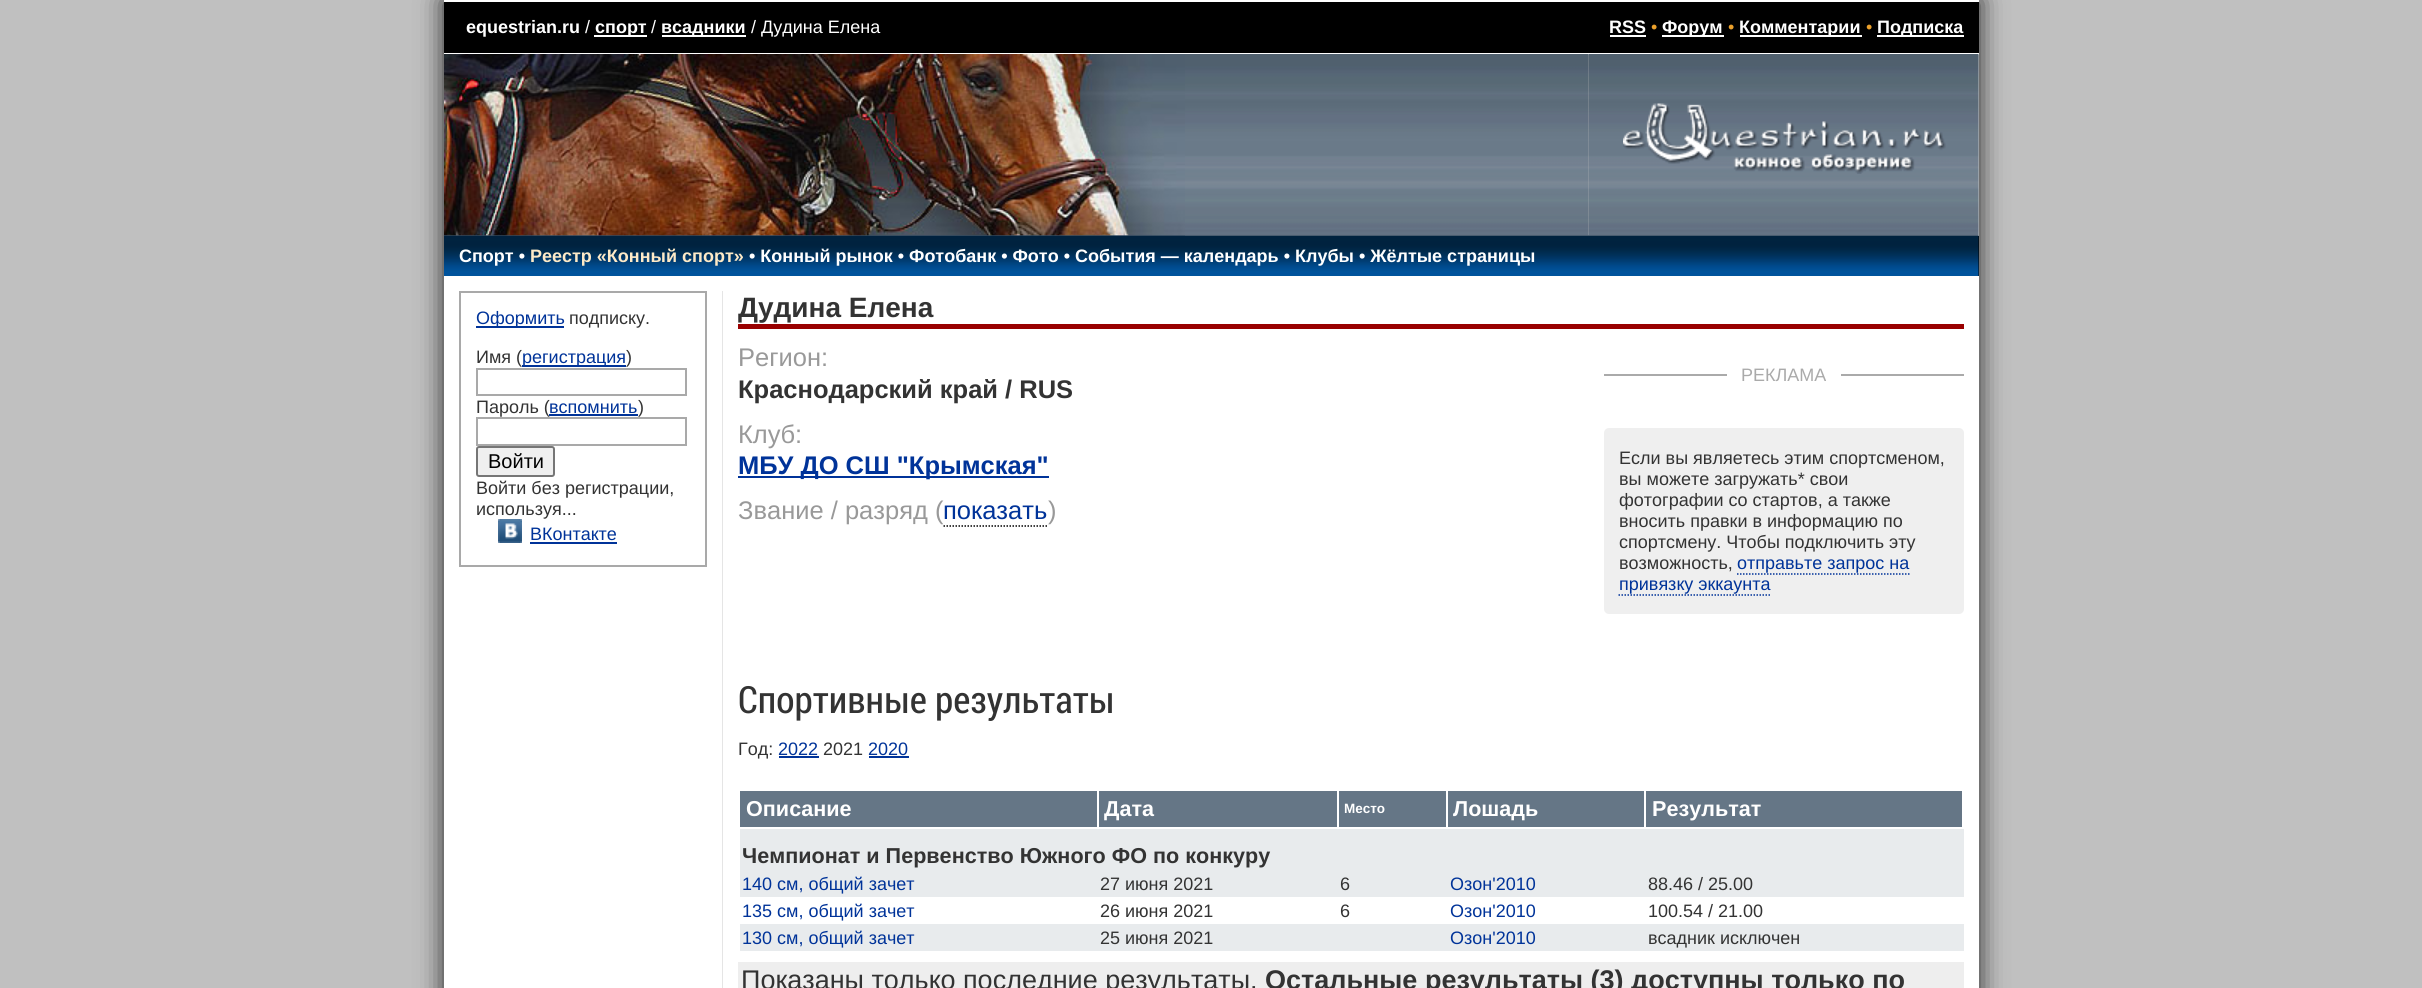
#include <cairo.h>
#include <math.h>
#include <stddef.h>

typedef struct { const char *family; double size; int italic, bold; unsigned color; } style_t;
static cairo_t *ctx;

static void ink(unsigned color) {
    cairo_set_source_rgb(ctx, (color >> 16) / 255.0, (color >> 8 & 255) / 255.0, (color & 255) / 255.0);
}

static void write(double x, double y, const char *s, const style_t *st) {
    cairo_select_font_face(ctx, st->family, st->italic ? CAIRO_FONT_SLANT_ITALIC : CAIRO_FONT_SLANT_NORMAL,
        st->bold ? CAIRO_FONT_WEIGHT_BOLD : CAIRO_FONT_WEIGHT_NORMAL);
    cairo_set_font_size(ctx, st->size);
    ink(st->color);
    cairo_move_to(ctx, x, y);
    cairo_show_text(ctx, s);
}

static void block(double x, double y, double w, double h, unsigned color) {
    ink(color);
    cairo_rectangle(ctx, x, y, w, h);
    cairo_fill(ctx);
}

static void round_path(double x, double y, double w, double h, double r) {
    cairo_new_sub_path(ctx);
    cairo_arc(ctx, x + w - r, y + h - r, r, 0, M_PI / 2);
    cairo_arc(ctx, x + r, y + h - r, r, M_PI / 2, M_PI);
    cairo_arc(ctx, x + r, y + r, r, M_PI, 1.5 * M_PI);
    cairo_arc(ctx, x + w - r, y + r, r, 1.5 * M_PI, 2 * M_PI);
    cairo_close_path(ctx);
}

static void blur_box(double x, double y, double w, double h, double r, double blur, double alpha) {
    cairo_push_group_with_content(ctx, CAIRO_CONTENT_ALPHA);
    cairo_set_operator(ctx, CAIRO_OPERATOR_SOURCE);
    for (int i = 15; i >= -15 && fmin(w, h) + blur * i / 3 > 0; i -= 2) {
        double e = blur * i / 6;
        cairo_set_source_rgba(ctx, 0, 0, 0, alpha * erfc((i - 1) / 8.5) / 2);
        round_path(x - e, y - e, w + 2 * e, h + 2 * e, fmax(0, fmin(r + e + blur * .6, fmin(w, h) / 2 + e)));
        cairo_fill(ctx);
    }
    cairo_pattern_t *soft = cairo_pop_group(ctx);
    cairo_mask(ctx, soft);
    cairo_pattern_destroy(soft);
}

static void paste(const char *path, double x, double y, double w, double h) {
    cairo_surface_t *image = cairo_image_surface_create_from_png(path);
    cairo_save(ctx);
    cairo_set_source_surface(ctx, image, x, y);
    cairo_rectangle(ctx, x, y, w, h);
    cairo_fill(ctx);
    cairo_restore(ctx);
    cairo_surface_destroy(image);
}

static const style_t s1 = {"Liberation Sans", 18, 0, 1, 0xffffff};
static const style_t s2 = {"Liberation Sans", 18, 0, 0, 0xffffff};
static const style_t s3 = {"Liberation Sans", 18, 0, 0, 0xeba02b};
static const style_t s4 = {"Liberation Sans", 18, 0, 1, 0xfeeac7};
static const style_t s5 = {"Liberation Sans", 18, 0, 0, 0x003399};
static const style_t s6 = {"Liberation Sans", 18, 0, 0, 0x333333};
static const style_t s7 = {"Liberation Sans", 20, 0, 0, 0x000000};
static const style_t s8 = {"Liberation Sans", 28, 0, 1, 0x333333};
static const style_t s9 = {"Liberation Sans", 25.5, 0, 0, 0x999999};
static const style_t s10 = {"Liberation Sans", 25.5, 0, 1, 0x333333};
static const style_t s11 = {"Liberation Sans", 25.5, 0, 1, 0x003399};
static const style_t s12 = {"Liberation Sans", 25.5, 0, 0, 0x003399};
static const style_t s13 = {"Liberation Sans", 18, 0, 0, 0xaaaaaa};
static const style_t s14 = {"Roboto Condensed", 37.5, 0, 0, 0x333333};
static const style_t s15 = {"Liberation Sans", 21.6, 0, 1, 0xffffff};
static const style_t s16 = {"Liberation Sans", 13.5, 0, 1, 0xffffff};
static const style_t s17 = {"Liberation Sans", 21.6, 0, 1, 0x333333};
static const style_t s18 = {"Liberation Sans", 27, 0, 0, 0x333333};
static const style_t s19 = {"Liberation Sans", 27, 0, 1, 0x333333};

int main(void) {
    cairo_surface_t *surface = cairo_image_surface_create(CAIRO_FORMAT_RGB24, 2422, 988);
    ctx = cairo_create(surface);
    cairo_font_options_t *options = cairo_font_options_create();
    cairo_font_options_set_hint_metrics(options, CAIRO_HINT_METRICS_OFF);
    cairo_font_options_set_hint_style(options, CAIRO_HINT_STYLE_NONE);
    cairo_set_font_options(ctx, options);
    cairo_set_miter_limit(ctx, 4);
    ink(0xc0c0c0);
    cairo_paint(ctx);
    ink(0x212121);
    blur_box(444, 0, 1535, 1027, 0, 13, 1);
    block(444, 55, 1535, 181, 0xc0c0c0);
    block(444, 2, 1535, 51, 0x000000);
    block(444, 0, 1535, 2, 0xffffff);
    block(444, 53, 1535, 2, 0xffffff);
    write(466, 33, "equestrian.ru", &s1);
    write(585, 33, "/", &s2);
    block(594, 35, 53, 2, 0xffffff);
    write(595, 33, "спорт", &s1);
    write(651, 33, "/", &s2);
    block(662, 35, 84, 2, 0xffffff);
    write(661, 33, "всадники", &s1);
    write(751, 33, "/ Дудина Елена", &s2);
    write(1609, 33, "RSS", &s1);
    block(1610, 35, 36, 2, 0xffffff);
    write(1651, 33, "•", &s3);
    block(1662, 35, 62, 2, 0xffffff);
    write(1662, 33, "Форум", &s1);
    write(1728, 33, "•", &s3);
    block(1740, 35, 122, 2, 0xffffff);
    write(1739, 33, "Комментарии", &s1);
    write(1866, 33, "•", &s3);
    block(1877, 35, 87, 2, 0xffffff);
    write(1877, 33, "Подписка", &s1);
    paste("pic1.png", 444, 54, 1145, 182);
    paste("pic2.png", 444, 54, 741, 182);
    paste("pic3.png", 1588, 54, 391, 182);
    paste("pic4.png", 1623, 103, 323, 71);
    block(1978, 236, 1, 40, 0x000000);
    paste("pic5.png", 444, 235, 1535, 41);
    write(459, 262, "Спорт •", &s1);
    write(530, 262, "Реестр «Конный спорт»", &s4);
    write(749, 262, "• Конный рынок • Фотобанк • Фото • События — календарь • Клубы • Жёлтые страницы", &s1);
    block(444, 276, 1535, 712, 0xffffff);
    block(722, 291, 1, 697, 0xe5e5e5);
    cairo_rectangle(ctx, 460, 292, 246, 274);
    ink(0xa9a9a9);
    cairo_stroke(ctx);
    block(476, 326, 88, 2, 0x003399);
    write(476, 324, "Оформить", &s5);
    write(569, 324, "подписку.", &s6);
    write(476, 363, "Имя (", &s6);
    block(522, 365, 104, 2, 0x003399);
    write(522, 363, "регистрация", &s5);
    write(626, 363, ")", &s6);
    cairo_rectangle(ctx, 477, 369, 209, 26);
    ink(0xa9a9a9);
    cairo_stroke(ctx);
    write(476, 413, "Пароль (", &s6);
    write(549, 413, "вспомнить", &s5);
    block(549, 414, 89, 2, 0x003399);
    write(638, 413, ")", &s6);
    cairo_rectangle(ctx, 477, 418, 209, 27);
    ink(0xa9a9a9);
    cairo_stroke(ctx);
    ink(0xefefef);
    round_path(477, 447, 77, 29, 2);
    cairo_fill_preserve(ctx);
    ink(0x767676);
    cairo_stroke(ctx);
    write(488, 468, "Войти", &s7);
    write(476, 494, "Войти без регистрации,", &s6);
    write(476, 515, "используя...", &s6);
    paste("pic6.png", 498, 519, 24, 24);
    write(530, 540, "ВКонтакте", &s5);
    block(530, 542, 87, 2, 0x003399);
    block(738, 324, 1226, 5, 0x990000);
    write(738, 317, "Дудина Елена", &s8);
    write(738, 366, "Регион:", &s9);
    write(738, 398, "Краснодарский край / RUS", &s10);
    write(738, 443, "Клуб:", &s9);
    block(738, 476, 311, 2, 0x003399);
    write(738, 474, "МБУ ДО СШ \"Крымская\"", &s11);
    write(738, 519, "Звание / разряд (", &s9);
    write(943, 519, "показать", &s12);
    cairo_new_path(ctx);
    cairo_move_to(ctx, 943.5, 526);
    cairo_line_to(ctx, 1047, 526);
    ink(0x000000);
    cairo_set_line_width(ctx, 1.5);
    cairo_set_dash(ctx, (double[]){1.5, 1.5}, 2, 0);
    cairo_stroke(ctx);
    write(1048, 519, ")", &s9);
    block(1604, 374, 360, 2, 0xaaaaaa);
    block(1727, 374, 114, 2, 0xffffff);
    write(1741, 381, "РЕКЛАМА", &s13);
    ink(0xefefef);
    round_path(1604, 428, 360, 186, 5);
    cairo_fill(ctx);
    write(1619, 464, "Если вы являетесь этим спортсменом,", &s6);
    write(1619, 485, "вы можете загружать* свои", &s6);
    write(1619, 506, "фотографии со стартов, а также", &s6);
    write(1619, 527, "вносить правки в информацию по", &s6);
    write(1619, 548, "спортсмену. Чтобы подключить эту", &s6);
    write(1619, 569, "возможность,", &s6);
    write(1737, 569, "отправьте запрос на", &s5);
    cairo_new_path(ctx);
    cairo_move_to(ctx, 1737, 574);
    cairo_line_to(ctx, 1909.5, 574);
    cairo_stroke(ctx);
    write(1619, 590, "привязку эккаунта", &s5);
    cairo_new_path(ctx);
    cairo_move_to(ctx, 1618.5, 595);
    cairo_line_to(ctx, 1770, 595);
    cairo_stroke(ctx);
    write(738, 713, "Спортивные результаты", &s14);
    write(738, 755, "Год:", &s6);
    write(778, 755, "2022", &s5);
    block(779, 756, 40, 2, 0x003399);
    write(823, 755, "2021", &s6);
    write(868, 755, "2020", &s5);
    block(869, 756, 40, 2, 0x003399);
    block(740, 791, 357, 36, 0x657686);
    write(746, 816, "Описание", &s15);
    block(1099, 791, 238, 36, 0x657686);
    write(1104, 816, "Дата", &s15);
    block(1339, 791, 107, 36, 0x657686);
    write(1344, 813, "Место", &s16);
    block(1448, 791, 196, 36, 0x657686);
    write(1453, 816, "Лошадь", &s15);
    block(1646, 791, 316, 36, 0x657686);
    write(1652, 816, "Результат", &s15);
    block(740, 829, 1224, 68, 0xe8ebed);
    write(742, 863, "Чемпионат и Первенство Южного ФО по конкуру", &s17);
    write(742, 890, "140 см, общий зачет", &s5);
    write(1100, 890, "27 июня 2021", &s6);
    write(1340, 890, "6", &s6);
    write(1450, 890, "Озон'2010", &s5);
    write(1648, 890, "88.46 / 25.00", &s6);
    write(742, 917, "135 см, общий зачет", &s5);
    write(1100, 917, "26 июня 2021", &s6);
    write(1340, 917, "6", &s6);
    write(1450, 917, "Озон'2010", &s5);
    write(1648, 917, "100.54 / 21.00", &s6);
    block(740, 924, 1224, 27, 0xe8ebed);
    write(742, 944, "130 см, общий зачет", &s5);
    write(1100, 944, "25 июня 2021", &s6);
    write(1450, 944, "Озон'2010", &s5);
    write(1648, 944, "всадник исключен", &s6);
    block(738, 962, 1226, 26, 0xeeeeee);
    write(741, 989, "Показаны только последние результаты.", &s18);
    write(1265, 989, "Остальные результаты (3) доступны только по", &s19);
    cairo_surface_write_to_png(surface, "screenshot.png");
    cairo_font_options_destroy(options);
    cairo_destroy(ctx);
    cairo_surface_destroy(surface);
    return 0;
}
